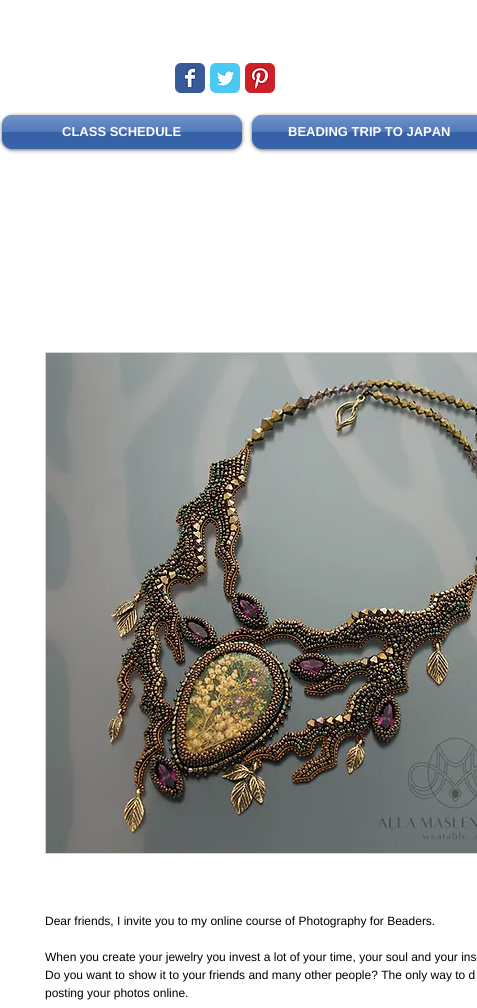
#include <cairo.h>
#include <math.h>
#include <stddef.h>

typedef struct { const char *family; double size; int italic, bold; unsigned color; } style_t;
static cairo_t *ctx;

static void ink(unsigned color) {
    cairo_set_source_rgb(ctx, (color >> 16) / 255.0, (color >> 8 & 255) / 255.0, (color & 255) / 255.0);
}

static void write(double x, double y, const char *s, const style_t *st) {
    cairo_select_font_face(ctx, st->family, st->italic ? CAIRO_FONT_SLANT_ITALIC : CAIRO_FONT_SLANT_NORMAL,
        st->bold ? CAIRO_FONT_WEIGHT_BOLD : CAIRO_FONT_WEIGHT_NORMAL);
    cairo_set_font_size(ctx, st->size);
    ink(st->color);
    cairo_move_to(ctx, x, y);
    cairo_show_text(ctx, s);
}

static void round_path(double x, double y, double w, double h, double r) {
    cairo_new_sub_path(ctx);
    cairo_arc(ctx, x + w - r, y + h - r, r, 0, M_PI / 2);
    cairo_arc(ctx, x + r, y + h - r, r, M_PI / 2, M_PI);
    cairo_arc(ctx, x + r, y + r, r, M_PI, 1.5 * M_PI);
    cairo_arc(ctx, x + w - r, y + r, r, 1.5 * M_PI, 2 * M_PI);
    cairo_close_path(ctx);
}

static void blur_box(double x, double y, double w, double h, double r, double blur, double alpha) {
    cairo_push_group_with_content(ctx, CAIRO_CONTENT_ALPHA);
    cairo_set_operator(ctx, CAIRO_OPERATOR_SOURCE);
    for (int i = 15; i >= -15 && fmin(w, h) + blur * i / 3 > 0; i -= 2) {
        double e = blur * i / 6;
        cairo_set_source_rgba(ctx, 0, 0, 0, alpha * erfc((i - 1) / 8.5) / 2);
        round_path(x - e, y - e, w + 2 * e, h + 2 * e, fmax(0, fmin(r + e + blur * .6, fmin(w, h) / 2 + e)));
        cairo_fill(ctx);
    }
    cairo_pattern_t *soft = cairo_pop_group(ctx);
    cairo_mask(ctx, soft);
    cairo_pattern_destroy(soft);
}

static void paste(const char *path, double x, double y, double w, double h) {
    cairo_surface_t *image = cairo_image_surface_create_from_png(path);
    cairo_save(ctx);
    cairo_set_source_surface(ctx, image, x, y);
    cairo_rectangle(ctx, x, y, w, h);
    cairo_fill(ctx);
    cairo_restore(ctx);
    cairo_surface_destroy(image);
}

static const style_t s1 = {"Liberation Sans", 13, 0, 1, 0xfdfdfe};
static const style_t s2 = {"Liberation Sans", 12, 0, 0, 0x000000};

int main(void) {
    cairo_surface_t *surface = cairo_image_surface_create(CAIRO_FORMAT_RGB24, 477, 1008);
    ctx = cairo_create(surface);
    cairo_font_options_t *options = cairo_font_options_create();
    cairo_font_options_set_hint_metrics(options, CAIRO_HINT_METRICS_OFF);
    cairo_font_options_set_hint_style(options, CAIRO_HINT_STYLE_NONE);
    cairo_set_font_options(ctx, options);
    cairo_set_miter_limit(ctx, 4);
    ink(0xffffff);
    cairo_paint(ctx);
    paste("pic1.png", 175, 63, 30, 30);
    paste("pic2.png", 210, 63, 30, 30);
    paste("pic3.png", 245, 63, 30, 30);
    ink(0x000000);
    blur_box(2, 116, 240, 34, 10, 2, 0.6);
    ink(0x3a68b2);
    round_path(2, 115, 240, 34, 10);
    cairo_fill(ctx);
    paste("pic4.png", 2, 115, 240, 34);
    write(62, 136, "CLASS SCHEDULE", &s1);
    ink(0x000000);
    blur_box(252, 116, 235, 34, 10, 2, 0.6);
    ink(0x3a68b2);
    round_path(252, 115, 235, 34, 10);
    cairo_fill(ctx);
    paste("pic5.png", 252, 115, 225, 34);
    write(288, 136, "BEADING TRIP TO JAPAN", &s1);
    cairo_rectangle(ctx, 45.5, 352.5, 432, 501);
    ink(0xd4d4d4);
    cairo_set_line_width(ctx, 1);
    cairo_stroke(ctx);
    paste("pic6.png", 46, 353, 431, 500);
    write(45, 925, "Dear friends, I invite you to my online course of Photography for Beaders.", &s2);
    write(45, 961, "When you create your jewelry you invest a lot of your time, your soul and your ins", &s2);
    write(45, 979, "Do you want to show it to your friends and many other people? The only way to d", &s2);
    write(45, 997, "posting your photos online.", &s2);
    cairo_surface_write_to_png(surface, "screenshot.png");
    cairo_font_options_destroy(options);
    cairo_destroy(ctx);
    cairo_surface_destroy(surface);
    return 0;
}
